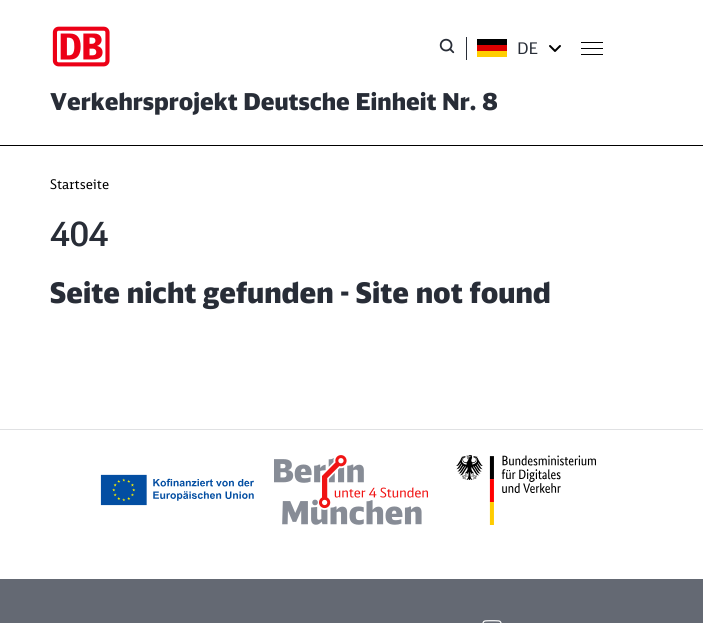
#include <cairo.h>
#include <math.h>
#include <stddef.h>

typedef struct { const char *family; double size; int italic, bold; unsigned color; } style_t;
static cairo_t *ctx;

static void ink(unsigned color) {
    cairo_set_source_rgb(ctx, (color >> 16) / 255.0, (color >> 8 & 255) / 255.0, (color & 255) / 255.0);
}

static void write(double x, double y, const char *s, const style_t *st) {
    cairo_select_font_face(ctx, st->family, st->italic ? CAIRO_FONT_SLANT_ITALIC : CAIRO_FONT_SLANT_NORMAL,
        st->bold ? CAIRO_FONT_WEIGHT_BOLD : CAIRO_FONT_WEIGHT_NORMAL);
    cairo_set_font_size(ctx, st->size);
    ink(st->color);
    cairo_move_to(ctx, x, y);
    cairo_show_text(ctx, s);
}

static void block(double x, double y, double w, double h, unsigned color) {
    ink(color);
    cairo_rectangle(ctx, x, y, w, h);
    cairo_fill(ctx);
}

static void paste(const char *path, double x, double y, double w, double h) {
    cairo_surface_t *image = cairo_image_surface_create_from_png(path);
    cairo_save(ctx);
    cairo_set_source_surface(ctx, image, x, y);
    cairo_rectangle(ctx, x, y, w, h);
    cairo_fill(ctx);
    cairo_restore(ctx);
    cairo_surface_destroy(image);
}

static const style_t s1 = {"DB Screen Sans", 16, 0, 0, 0x282d37};
static const style_t s2 = {"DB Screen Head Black", 23.25, 0, 0, 0x282d37};
static const style_t s3 = {"DB Screen Sans", 13.25, 0, 0, 0x000000};
static const style_t s4 = {"DB Screen Sans", 32, 0, 1, 0x282d37};
static const style_t s5 = {"DB Screen Head Black", 28.25, 0, 0, 0x282d37};

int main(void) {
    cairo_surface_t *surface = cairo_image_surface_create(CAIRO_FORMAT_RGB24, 703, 623);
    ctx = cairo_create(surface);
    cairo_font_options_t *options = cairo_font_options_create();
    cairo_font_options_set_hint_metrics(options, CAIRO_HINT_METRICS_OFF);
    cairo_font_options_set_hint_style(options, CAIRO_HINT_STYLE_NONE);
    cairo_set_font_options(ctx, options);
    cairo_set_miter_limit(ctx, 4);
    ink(0xffffff);
    cairo_paint(ctx);
    block(0, 145, 703, 1, 0x000000);
    paste("pic1.png", 52, 26, 58, 41);
    block(466, 37, 1, 23, 0x282d37);
    paste("pic2.png", 439, 38, 16, 16);
    block(477, 39, 30, 6, 0x000000);
    block(477, 45, 30, 6, 0xdd0000);
    block(477, 51, 30, 6, 0xffce00);
    write(517, 54, "DE", &s1);
    paste("pic3.png", 549, 45, 12, 7);
    block(581, 42, 22, 1, 0x000000);
    block(581, 48, 22, 1, 0x000000);
    block(581, 54, 22, 1, 0x000000);
    write(50, 110, "Verkehrsprojekt Deutsche Einheit Nr. 8", &s2);
    write(50, 189, "Startseite", &s3);
    write(50, 246, "404", &s4);
    write(50, 303, "Seite nicht gefunden - Site not found", &s5);
    block(0, 429, 703, 1, 0xe0e1e3);
    paste("pic4.png", 100, 474, 154, 32);
    paste("pic5.png", 274, 455, 154, 70);
    paste("pic6.png", 456, 455, 140, 70);
    block(0, 579, 703, 44, 0x646973);
    paste("pic7.png", 482, 620, 20, 3);
    cairo_surface_write_to_png(surface, "screenshot.png");
    cairo_font_options_destroy(options);
    cairo_destroy(ctx);
    cairo_surface_destroy(surface);
    return 0;
}
